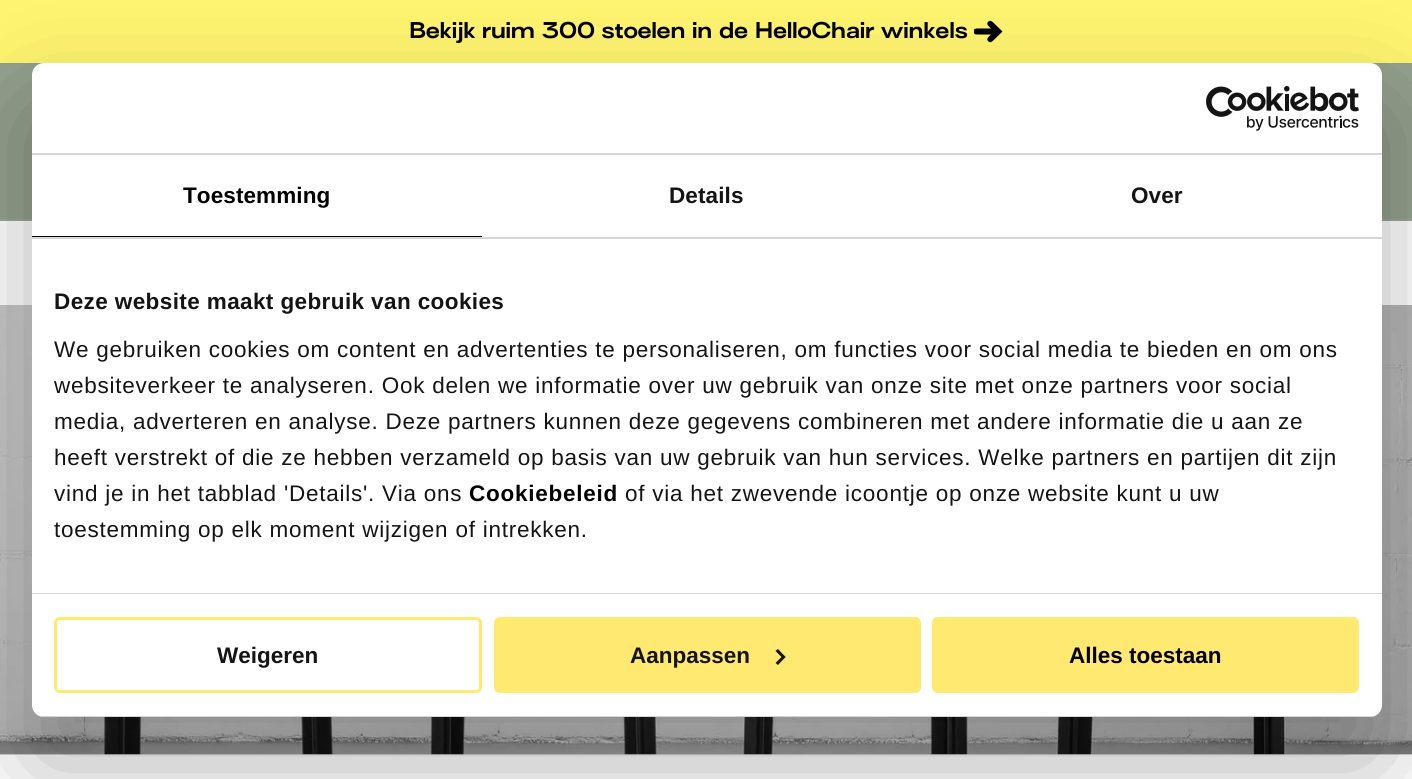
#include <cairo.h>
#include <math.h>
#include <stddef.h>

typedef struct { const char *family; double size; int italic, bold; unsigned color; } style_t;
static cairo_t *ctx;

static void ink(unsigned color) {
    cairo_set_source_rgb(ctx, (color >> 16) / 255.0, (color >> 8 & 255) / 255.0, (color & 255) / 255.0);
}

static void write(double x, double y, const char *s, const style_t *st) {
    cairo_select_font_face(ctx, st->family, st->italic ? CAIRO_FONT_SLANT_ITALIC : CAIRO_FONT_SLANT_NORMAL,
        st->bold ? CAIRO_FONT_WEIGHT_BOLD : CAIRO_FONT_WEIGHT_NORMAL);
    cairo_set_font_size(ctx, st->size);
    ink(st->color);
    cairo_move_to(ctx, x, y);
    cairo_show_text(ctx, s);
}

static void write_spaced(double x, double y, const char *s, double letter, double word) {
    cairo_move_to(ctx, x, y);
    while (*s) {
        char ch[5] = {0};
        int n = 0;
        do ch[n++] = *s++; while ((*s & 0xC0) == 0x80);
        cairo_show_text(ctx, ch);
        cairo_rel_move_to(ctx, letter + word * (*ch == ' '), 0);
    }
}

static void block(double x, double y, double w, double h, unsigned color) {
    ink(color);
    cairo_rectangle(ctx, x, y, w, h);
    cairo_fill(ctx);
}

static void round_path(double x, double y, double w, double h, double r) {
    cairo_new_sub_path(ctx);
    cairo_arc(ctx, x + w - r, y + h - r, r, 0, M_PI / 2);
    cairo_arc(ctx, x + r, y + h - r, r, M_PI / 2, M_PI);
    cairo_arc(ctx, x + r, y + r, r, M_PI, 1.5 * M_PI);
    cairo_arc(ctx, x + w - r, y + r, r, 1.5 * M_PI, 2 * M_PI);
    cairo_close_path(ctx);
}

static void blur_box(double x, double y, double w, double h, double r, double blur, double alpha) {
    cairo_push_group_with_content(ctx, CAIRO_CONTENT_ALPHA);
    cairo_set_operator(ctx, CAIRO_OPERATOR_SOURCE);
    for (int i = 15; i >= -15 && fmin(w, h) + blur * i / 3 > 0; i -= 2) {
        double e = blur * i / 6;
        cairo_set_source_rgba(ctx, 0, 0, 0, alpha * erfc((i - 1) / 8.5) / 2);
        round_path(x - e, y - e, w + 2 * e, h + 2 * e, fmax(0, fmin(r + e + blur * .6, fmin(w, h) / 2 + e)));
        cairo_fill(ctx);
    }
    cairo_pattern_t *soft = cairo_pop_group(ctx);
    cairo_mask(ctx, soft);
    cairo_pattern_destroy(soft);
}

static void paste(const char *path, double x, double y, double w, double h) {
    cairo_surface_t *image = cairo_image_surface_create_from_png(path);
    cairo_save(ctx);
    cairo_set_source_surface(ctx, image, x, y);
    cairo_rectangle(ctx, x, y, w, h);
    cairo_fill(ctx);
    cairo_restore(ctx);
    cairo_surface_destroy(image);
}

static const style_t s1 = {"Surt", 21, 0, 1, 0x000000};
static const style_t s2 = {"Liberation Sans", 22.5, 0, 1, 0x141414};
static const style_t s3 = {"Liberation Sans", 22.5, 0, 1, 0x000000};

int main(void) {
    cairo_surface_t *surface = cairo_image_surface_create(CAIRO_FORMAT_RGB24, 1412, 779);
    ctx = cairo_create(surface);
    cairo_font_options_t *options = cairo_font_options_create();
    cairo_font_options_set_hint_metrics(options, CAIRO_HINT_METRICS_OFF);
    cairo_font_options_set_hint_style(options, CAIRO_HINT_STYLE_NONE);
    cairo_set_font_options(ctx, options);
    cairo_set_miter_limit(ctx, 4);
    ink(0xffffff);
    cairo_paint(ctx);
    block(0, 0, 1412, 63, 0xfff46f);
    write(409, 38, "Bekijk ruim 300 stoelen in de HelloChair winkels", &s1);
    paste("pic1.png", 974, 20, 29, 23);
    block(0, 63, 1412, 156, 0x94a18e);
    block(0, 219, 1412, 2, 0x9da997);
    block(0, 754, 1412, 1, 0xe6e6e6);
    paste("pic3.png", 0, 305, 1412, 450);
    ink(0x000000);
    blur_box(32, 111, 1350, 654, 12, 51, 0.3);
    ink(0xffffff);
    round_path(32, 63, 1350, 654, 12);
    cairo_fill(ctx);
    block(32, 153, 1350, 2, 0xd6d6d6);
    paste("pic2.png", 1206, 86, 153, 45);
    block(32, 237, 1350, 2, 0xd6d6d6);
    block(32, 236, 450, 1, 0x000000);
    cairo_select_font_face(ctx, "Liberation Sans", CAIRO_FONT_SLANT_NORMAL, CAIRO_FONT_WEIGHT_BOLD);
    cairo_set_font_size(ctx, 22.5);
    write_spaced(183, 203, "Toestemming", 0.1, 0);
    ink(0x141414);
    write_spaced(669, 203, "Details", 0.1, 0);
    write_spaced(1131, 203, "Over", 0.1, 0);
    block(32, 593, 1350, 1, 0xd6d6d6);
    ink(0x141414);
    write_spaced(54, 309, "Deze website maakt gebruik van cookies", 0.4, 0);
    cairo_select_font_face(ctx, "Liberation Sans", CAIRO_FONT_SLANT_NORMAL, CAIRO_FONT_WEIGHT_NORMAL);
    write_spaced(54, 357, "We gebruiken cookies om content en advertenties te personaliseren, om functies voor social media te bieden en om ons", 0.75, 0);
    write_spaced(54, 393, "websiteverkeer te analyseren. Ook delen we informatie over uw gebruik van onze site met onze partners voor social", 0.75, 0);
    write_spaced(54, 429, "media, adverteren en analyse. Deze partners kunnen deze gegevens combineren met andere informatie die u aan ze", 0.75, 0);
    write_spaced(54, 465, "heeft verstrekt of die ze hebben verzameld op basis van uw gebruik van hun services. Welke partners en partijen dit zijn", 0.75, 0);
    write_spaced(54, 501, "vind je in het tabblad 'Details'. Via ons", 0.75, 0);
    cairo_select_font_face(ctx, "Liberation Sans", CAIRO_FONT_SLANT_NORMAL, CAIRO_FONT_WEIGHT_BOLD);
    ink(0x000000);
    write_spaced(469, 501, "Cookiebeleid", 0.75, 0);
    cairo_select_font_face(ctx, "Liberation Sans", CAIRO_FONT_SLANT_NORMAL, CAIRO_FONT_WEIGHT_NORMAL);
    ink(0x141414);
    write_spaced(625, 501, "of via het zwevende icoontje op onze website kunt u uw", 0.75, 0);
    write_spaced(54, 537, "toestemming op elk moment wijzigen of intrekken.", 0.75, 0);
    cairo_save(ctx);
    round_path(32, 63, 1350, 654, 12);
    cairo_clip(ctx);
    block(32, 716, 1350, 1, 0xd6d6d6);
    cairo_restore(ctx);
    round_path(55.5, 618.5, 425, 73, 4.5);
    ink(0xffe970);
    cairo_set_line_width(ctx, 3);
    cairo_stroke(ctx);
    write(217, 663, "Weigeren", &s2);
    ink(0xffe970);
    round_path(495.5, 618.5, 424, 73, 4.5);
    cairo_fill_preserve(ctx);
    cairo_stroke(ctx);
    write(630, 663, "Aanpassen", &s2);
    cairo_new_path(ctx);
    cairo_move_to(ctx, 778, 649);
    cairo_line_to(ctx, 785.5, 657);
    cairo_line_to(ctx, 783.5, 659);
    cairo_line_to(ctx, 775.5, 651);
    cairo_close_path(ctx);
    cairo_fill(ctx);
    cairo_new_path(ctx);
    cairo_move_to(ctx, 783.5, 655);
    cairo_line_to(ctx, 785.5, 657);
    cairo_line_to(ctx, 778, 665);
    cairo_line_to(ctx, 775.5, 663);
    cairo_close_path(ctx);
    cairo_fill(ctx);
    ink(0xffe970);
    round_path(933.5, 618.5, 424, 73, 4.5);
    cairo_fill_preserve(ctx);
    cairo_stroke(ctx);
    write(1069, 663, "Alles toestaan", &s3);
    cairo_surface_write_to_png(surface, "screenshot.png");
    cairo_font_options_destroy(options);
    cairo_destroy(ctx);
    cairo_surface_destroy(surface);
    return 0;
}
